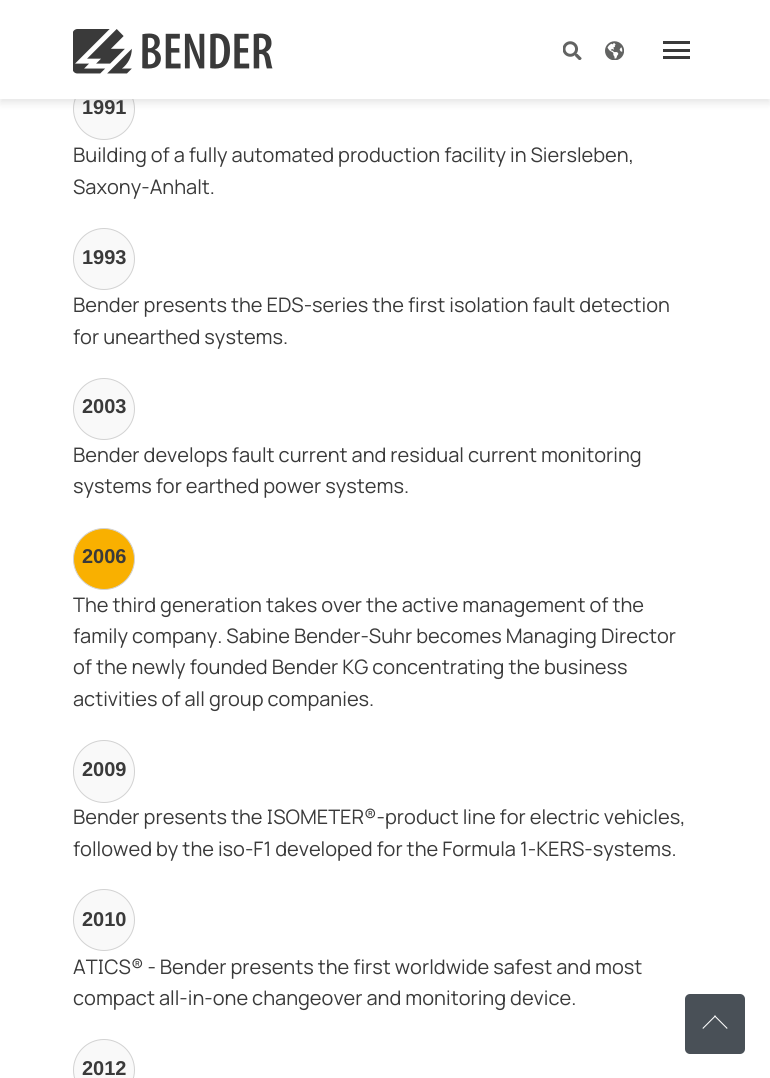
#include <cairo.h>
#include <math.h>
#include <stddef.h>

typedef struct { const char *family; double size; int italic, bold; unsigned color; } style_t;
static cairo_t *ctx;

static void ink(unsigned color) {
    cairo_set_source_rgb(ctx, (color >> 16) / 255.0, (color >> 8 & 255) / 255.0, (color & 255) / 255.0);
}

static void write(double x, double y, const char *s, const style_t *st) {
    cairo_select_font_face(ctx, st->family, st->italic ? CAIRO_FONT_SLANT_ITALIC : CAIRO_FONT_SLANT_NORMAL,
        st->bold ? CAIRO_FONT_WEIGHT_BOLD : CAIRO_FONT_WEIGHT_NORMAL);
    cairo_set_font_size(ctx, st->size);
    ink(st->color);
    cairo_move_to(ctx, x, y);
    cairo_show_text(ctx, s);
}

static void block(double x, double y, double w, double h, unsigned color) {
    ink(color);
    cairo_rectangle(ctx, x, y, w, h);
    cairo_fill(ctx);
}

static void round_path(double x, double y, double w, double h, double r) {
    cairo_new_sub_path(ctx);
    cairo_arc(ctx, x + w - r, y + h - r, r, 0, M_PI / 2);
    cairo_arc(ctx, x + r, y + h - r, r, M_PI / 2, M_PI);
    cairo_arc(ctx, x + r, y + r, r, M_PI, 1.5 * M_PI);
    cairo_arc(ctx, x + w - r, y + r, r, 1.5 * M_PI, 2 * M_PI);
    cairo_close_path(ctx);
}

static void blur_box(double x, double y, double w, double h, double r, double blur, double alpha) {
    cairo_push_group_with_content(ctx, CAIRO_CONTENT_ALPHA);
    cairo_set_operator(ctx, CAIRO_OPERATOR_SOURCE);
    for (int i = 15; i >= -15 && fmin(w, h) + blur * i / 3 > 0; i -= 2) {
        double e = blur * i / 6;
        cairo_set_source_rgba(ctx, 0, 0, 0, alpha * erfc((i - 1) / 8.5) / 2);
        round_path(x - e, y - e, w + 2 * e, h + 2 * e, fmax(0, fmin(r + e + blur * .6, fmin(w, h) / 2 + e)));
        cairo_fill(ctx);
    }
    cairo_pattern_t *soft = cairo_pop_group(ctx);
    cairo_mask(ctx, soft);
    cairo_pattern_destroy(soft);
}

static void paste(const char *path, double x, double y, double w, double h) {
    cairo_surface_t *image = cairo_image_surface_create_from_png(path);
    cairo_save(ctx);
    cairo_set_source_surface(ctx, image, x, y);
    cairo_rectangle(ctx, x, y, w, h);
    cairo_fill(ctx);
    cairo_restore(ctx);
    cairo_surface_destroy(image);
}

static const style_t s1 = {"Liberation Sans", 20, 0, 1, 0x3a3a3a};
static const style_t s2 = {"Manrope", 20, 0, 0, 0x3a3a3a};

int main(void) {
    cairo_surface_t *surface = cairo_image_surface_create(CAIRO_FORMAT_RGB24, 770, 1078);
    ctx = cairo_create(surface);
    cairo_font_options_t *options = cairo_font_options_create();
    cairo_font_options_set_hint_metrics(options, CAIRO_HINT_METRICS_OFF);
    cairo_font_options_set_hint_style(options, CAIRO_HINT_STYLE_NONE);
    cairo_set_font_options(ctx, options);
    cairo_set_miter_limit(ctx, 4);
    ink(0xffffff);
    cairo_paint(ctx);
    ink(0xf9f9f9);
    cairo_arc(ctx, 104, 109, 30.5, 0, 2 * M_PI);
    cairo_fill_preserve(ctx);
    ink(0xd2d2d2);
    cairo_set_line_width(ctx, 1);
    cairo_stroke(ctx);
    ink(0x000000);
    blur_box(0, 4, 770, 99, 0, 4, 0.1);
    block(0, 0, 770, 99, 0xffffff);
    paste("pic1.png", 73, 29, 200, 45);
    paste("pic2.png", 563, 41, 19, 19);
    paste("pic3.png", 605, 41, 19, 19);
    block(663, 49, 27, 3, 0x3a3a3a);
    block(663, 41, 27, 3, 0x3a3a3a);
    block(663, 56, 27, 3, 0x3a3a3a);
    write(82, 114, "1991", &s1);
    write(73, 162, "Building of a fully automated production facility in Siersleben,", &s2);
    write(73, 194, "Saxony-Anhalt.", &s2);
    ink(0xf9f9f9);
    cairo_new_path(ctx);
    cairo_arc(ctx, 104, 259, 30.5, 0, 2 * M_PI);
    cairo_fill_preserve(ctx);
    ink(0xd2d2d2);
    cairo_stroke(ctx);
    write(82, 264, "1993", &s1);
    write(73, 312, "Bender presents the EDS-series the first isolation fault detection", &s2);
    write(73, 344, "for unearthed systems.", &s2);
    ink(0xf9f9f9);
    cairo_new_path(ctx);
    cairo_arc(ctx, 104, 409, 30.5, 0, 2 * M_PI);
    cairo_fill_preserve(ctx);
    ink(0xd2d2d2);
    cairo_stroke(ctx);
    write(82, 413, "2003", &s1);
    write(73, 462, "Bender develops fault current and residual current monitoring", &s2);
    write(73, 493, "systems for earthed power systems.", &s2);
    ink(0xf9b000);
    cairo_new_path(ctx);
    cairo_arc(ctx, 104, 559, 30.5, 0, 2 * M_PI);
    cairo_fill_preserve(ctx);
    ink(0xd2d2d2);
    cairo_stroke(ctx);
    write(82, 563, "2006", &s1);
    write(73, 612, "The third generation takes over the active management of the", &s2);
    write(73, 643, "family company. Sabine Bender-Suhr becomes Managing Director", &s2);
    write(73, 674, "of the newly founded Bender KG concentrating the business", &s2);
    write(73, 706, "activities of all group companies.", &s2);
    ink(0xf9f9f9);
    round_path(73.5, 740.5, 61, 62, 30.5);
    cairo_fill_preserve(ctx);
    ink(0xd2d2d2);
    cairo_stroke(ctx);
    write(82, 776, "2009", &s1);
    write(73, 824, "Bender presents the ISOMETER®-product line for electric vehicles,", &s2);
    write(73, 856, "followed by the iso-F1 developed for the Formula 1-KERS-systems.", &s2);
    ink(0xf9f9f9);
    cairo_new_path(ctx);
    cairo_arc(ctx, 104, 920, 30.5, 0, 2 * M_PI);
    cairo_fill_preserve(ctx);
    ink(0xd2d2d2);
    cairo_stroke(ctx);
    write(82, 926, "2010", &s1);
    write(73, 974, "ATICS® - Bender presents the first worldwide safest and most", &s2);
    write(73, 1005, "compact all-in-one changeover and monitoring device.", &s2);
    ink(0xf9f9f9);
    cairo_new_path(ctx);
    cairo_arc(ctx, 104, 1070, 30.5, 0, 2 * M_PI);
    cairo_fill_preserve(ctx);
    ink(0xd2d2d2);
    cairo_stroke(ctx);
    write(82, 1075, "2012", &s1);
    ink(0x495057);
    round_path(685, 994, 60, 60, 5);
    cairo_fill(ctx);
    ink(0xffffff);
    cairo_new_path(ctx);
    cairo_move_to(ctx, 715, 1015.5);
    cairo_line_to(ctx, 727.5, 1028);
    cairo_line_to(ctx, 727, 1029);
    cairo_line_to(ctx, 714, 1016);
    cairo_close_path(ctx);
    cairo_fill(ctx);
    cairo_new_path(ctx);
    cairo_move_to(ctx, 715, 1015.5);
    cairo_line_to(ctx, 716, 1016);
    cairo_line_to(ctx, 703, 1029);
    cairo_line_to(ctx, 702.5, 1028);
    cairo_close_path(ctx);
    cairo_fill(ctx);
    cairo_surface_write_to_png(surface, "screenshot.png");
    cairo_font_options_destroy(options);
    cairo_destroy(ctx);
    cairo_surface_destroy(surface);
    return 0;
}
